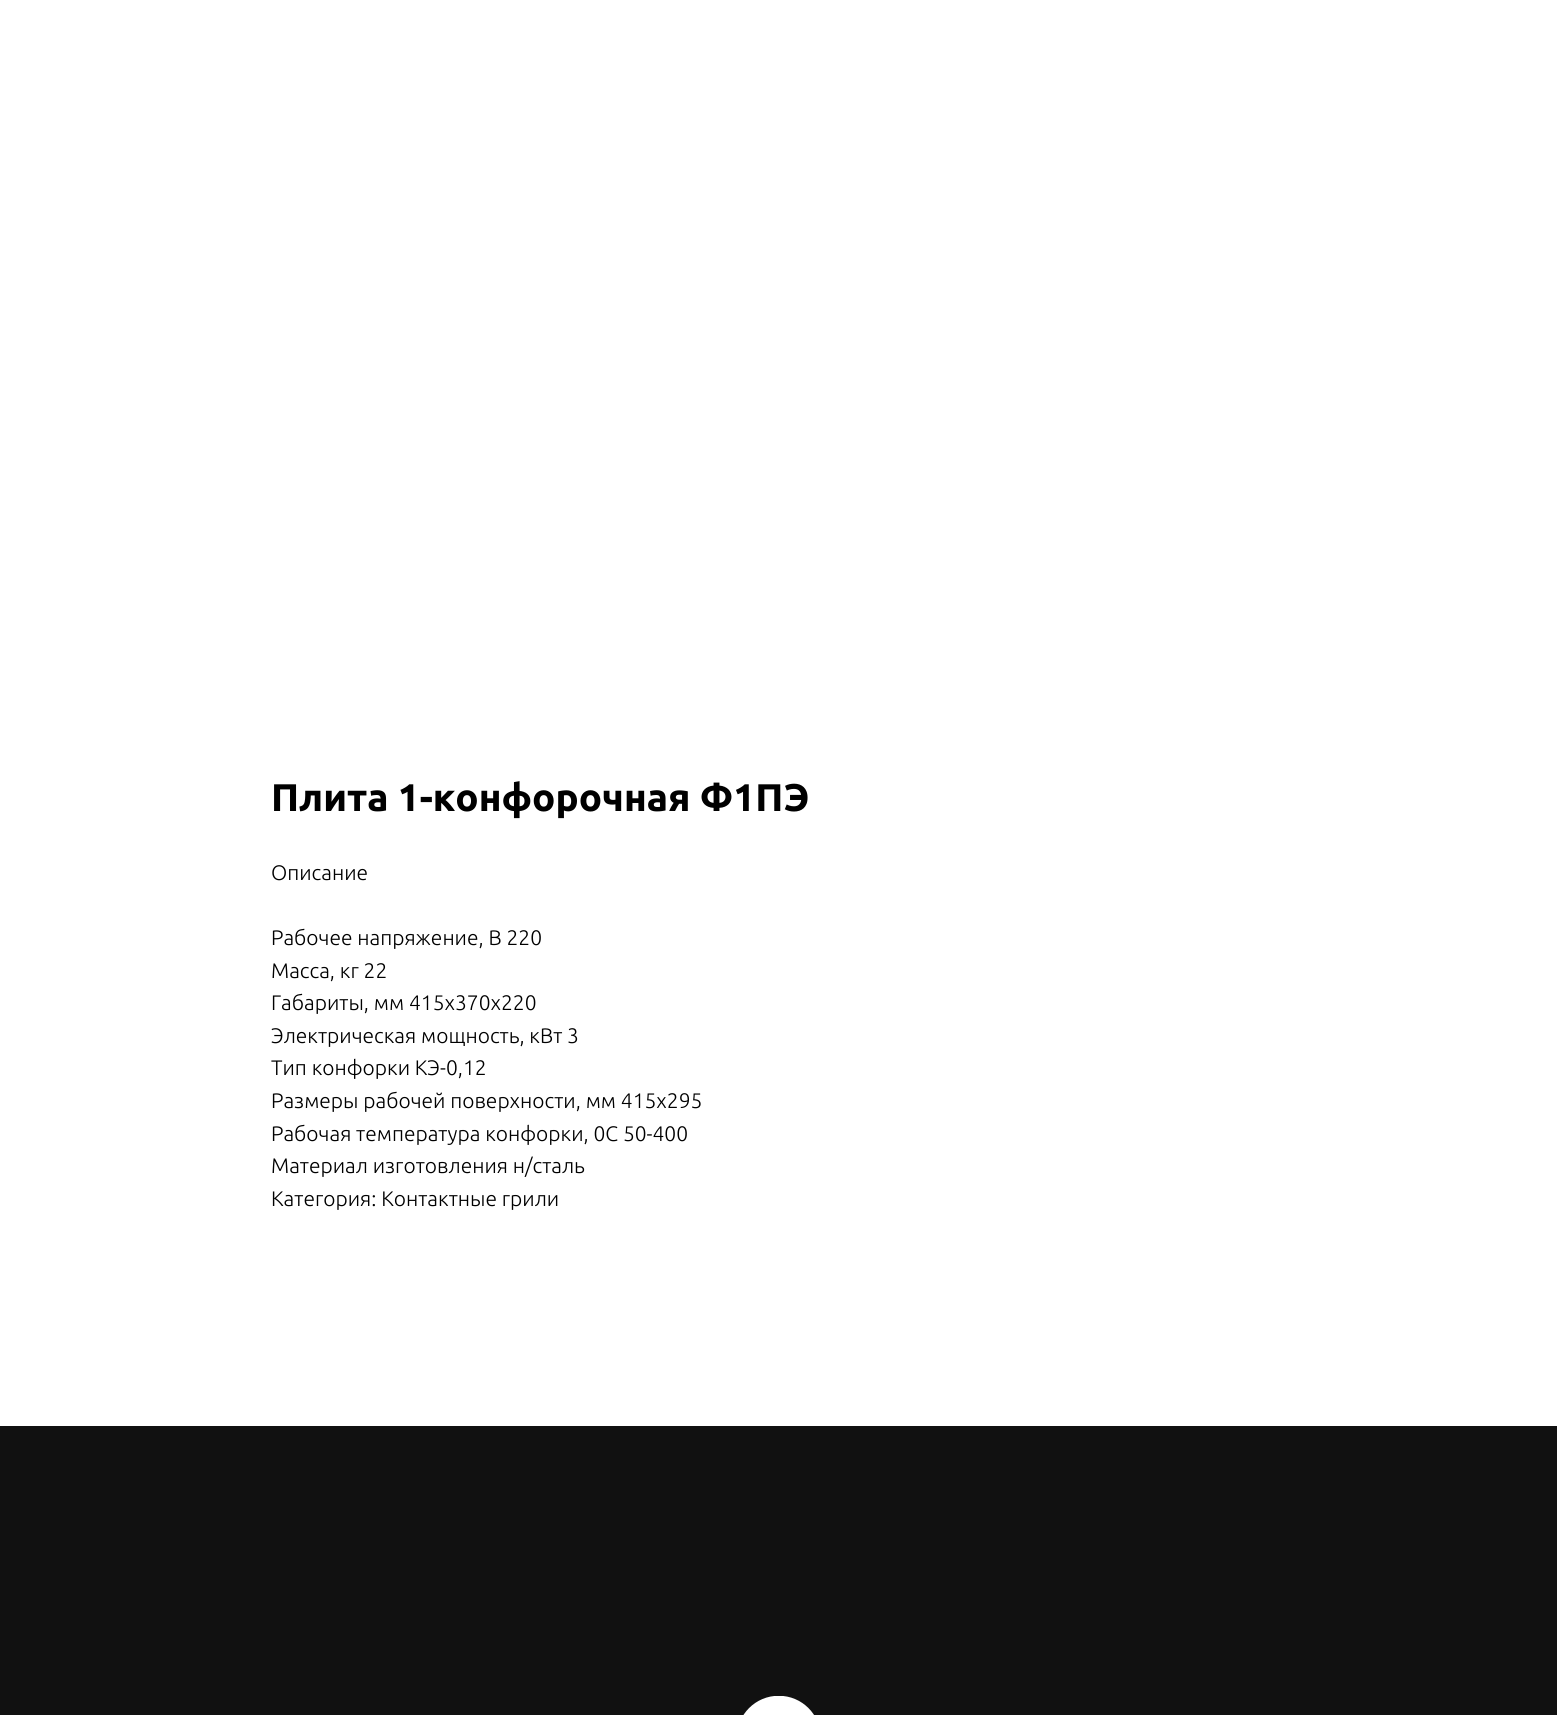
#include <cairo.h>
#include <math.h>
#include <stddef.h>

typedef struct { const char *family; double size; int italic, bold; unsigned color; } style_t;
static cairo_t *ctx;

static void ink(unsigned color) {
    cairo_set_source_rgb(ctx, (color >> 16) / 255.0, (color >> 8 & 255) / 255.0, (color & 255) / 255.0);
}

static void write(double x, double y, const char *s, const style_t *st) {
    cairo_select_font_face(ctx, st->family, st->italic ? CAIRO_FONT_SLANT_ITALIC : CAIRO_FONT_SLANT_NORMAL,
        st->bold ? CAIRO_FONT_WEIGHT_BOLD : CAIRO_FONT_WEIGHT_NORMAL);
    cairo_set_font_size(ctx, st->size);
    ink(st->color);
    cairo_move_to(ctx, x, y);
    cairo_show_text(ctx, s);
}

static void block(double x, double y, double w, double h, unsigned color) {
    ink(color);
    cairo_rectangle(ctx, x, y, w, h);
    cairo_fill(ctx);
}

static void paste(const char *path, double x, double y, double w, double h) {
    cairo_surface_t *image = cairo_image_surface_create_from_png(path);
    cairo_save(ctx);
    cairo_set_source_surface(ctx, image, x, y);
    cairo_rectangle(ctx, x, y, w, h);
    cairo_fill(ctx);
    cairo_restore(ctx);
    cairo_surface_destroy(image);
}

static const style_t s1 = {"Ubuntu", 38.5, 0, 1, 0x000000};
static const style_t s2 = {"Ubuntu Light", 21, 0, 0, 0x000000};

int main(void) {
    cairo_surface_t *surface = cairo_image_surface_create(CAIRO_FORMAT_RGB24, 1557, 1715);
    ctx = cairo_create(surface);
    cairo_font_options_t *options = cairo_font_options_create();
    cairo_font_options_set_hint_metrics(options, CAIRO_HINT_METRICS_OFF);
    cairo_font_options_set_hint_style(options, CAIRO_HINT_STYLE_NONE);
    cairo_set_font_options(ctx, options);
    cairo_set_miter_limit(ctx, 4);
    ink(0xffffff);
    cairo_paint(ctx);
    write(271, 811, "Плита 1-конфорочная Ф1ПЭ", &s1);
    write(271, 880, "Описание", &s2);
    write(271, 945, "Рабочее напряжение, В 220", &s2);
    write(271, 978, "Масса, кг 22", &s2);
    write(271, 1010, "Габариты, мм 415х370х220", &s2);
    write(271, 1043, "Электрическая мощность, кВт 3", &s2);
    write(271, 1075, "Тип конфорки КЭ-0,12", &s2);
    write(271, 1108, "Размеры рабочей поверхности, мм 415х295", &s2);
    write(271, 1141, "Рабочая температура конфорки, 0С 50-400", &s2);
    write(271, 1173, "Материал изготовления н/сталь", &s2);
    write(271, 1206, "Категория: Контактные грили", &s2);
    block(0, 1426, 1557, 289, 0x111111);
    paste("pic1.png", 743, 1696, 71, 19);
    cairo_surface_write_to_png(surface, "screenshot.png");
    cairo_font_options_destroy(options);
    cairo_destroy(ctx);
    cairo_surface_destroy(surface);
    return 0;
}
